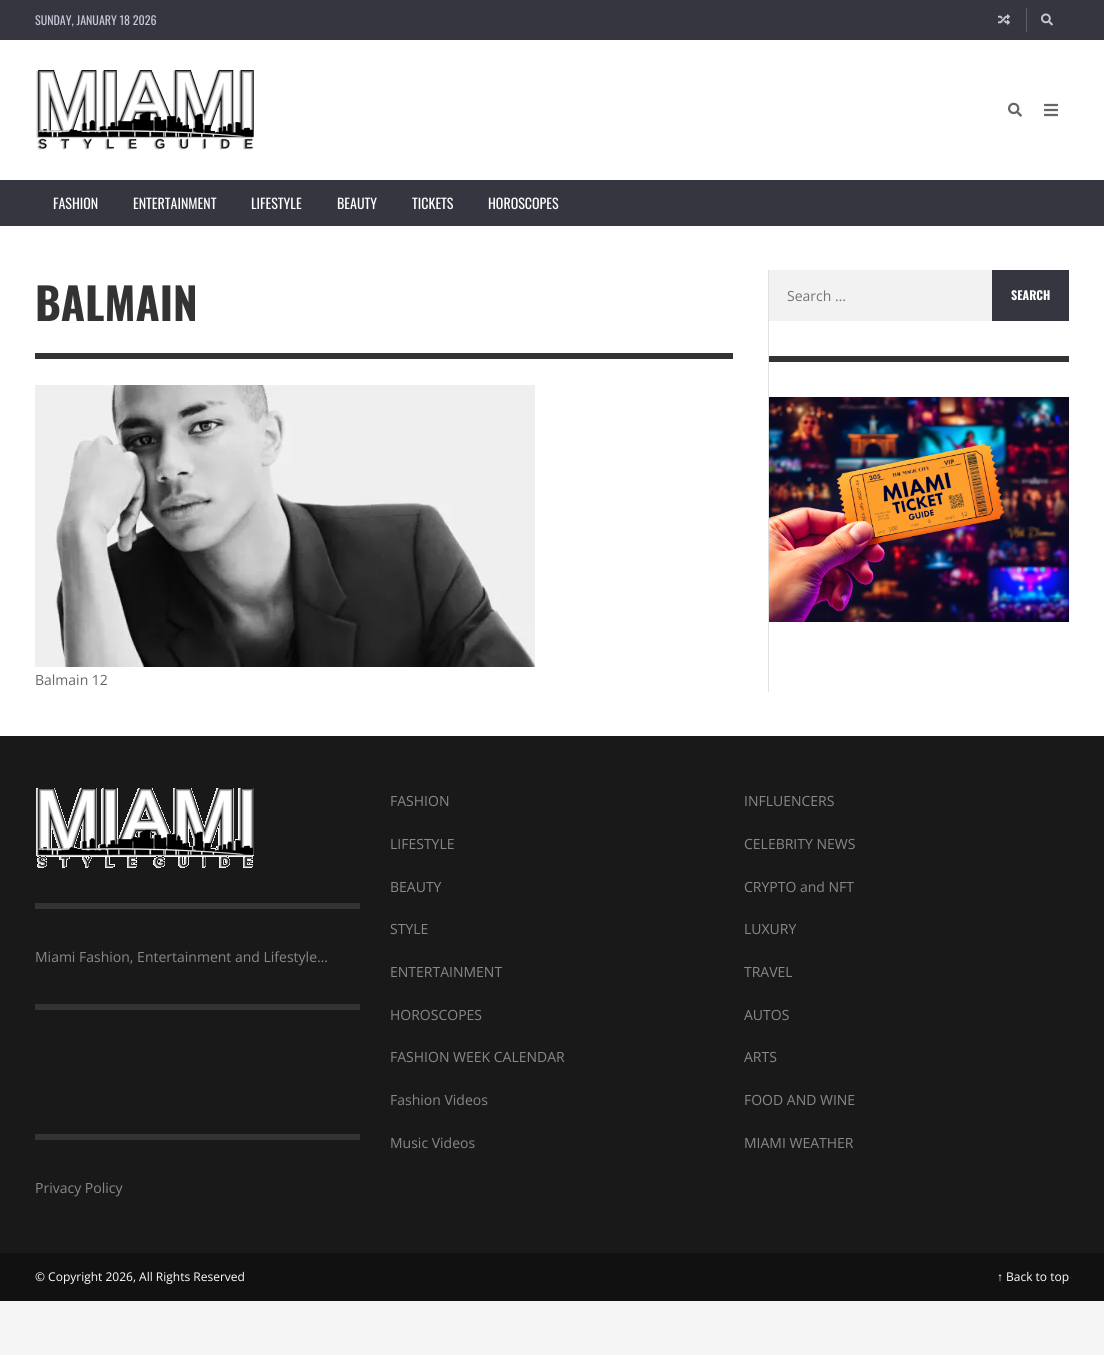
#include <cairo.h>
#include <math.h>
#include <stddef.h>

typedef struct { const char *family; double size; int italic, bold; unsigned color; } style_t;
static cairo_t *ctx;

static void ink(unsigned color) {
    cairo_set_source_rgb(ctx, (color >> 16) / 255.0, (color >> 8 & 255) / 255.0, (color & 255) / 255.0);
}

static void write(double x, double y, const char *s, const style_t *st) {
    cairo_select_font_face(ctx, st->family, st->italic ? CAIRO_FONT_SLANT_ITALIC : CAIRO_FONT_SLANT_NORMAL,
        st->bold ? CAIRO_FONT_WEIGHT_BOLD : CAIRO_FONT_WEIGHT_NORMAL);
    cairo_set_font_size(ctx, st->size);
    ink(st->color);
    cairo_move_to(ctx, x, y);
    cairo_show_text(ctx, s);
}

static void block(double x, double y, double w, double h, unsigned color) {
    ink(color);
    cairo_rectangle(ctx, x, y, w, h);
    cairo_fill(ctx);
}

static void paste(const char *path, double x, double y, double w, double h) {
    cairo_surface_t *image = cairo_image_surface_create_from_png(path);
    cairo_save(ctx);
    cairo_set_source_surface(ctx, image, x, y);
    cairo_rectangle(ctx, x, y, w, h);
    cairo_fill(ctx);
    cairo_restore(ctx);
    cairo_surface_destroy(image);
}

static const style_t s1 = {"Oswald", 12, 0, 0, 0xc8c8d9};
static const style_t s2 = {"Oswald", 14, 0, 0, 0xffffff};
static const style_t s3 = {"Oswald", 44, 0, 1, 0x333333};
static const style_t s4 = {"Open Sans", 14, 0, 0, 0x666666};
static const style_t s5 = {"Open Sans", 14, 0, 0, 0x757575};
static const style_t s6 = {"Oswald", 12, 0, 1, 0xffffff};
static const style_t s7 = {"Open Sans", 14, 0, 0, 0x888888};
static const style_t s8 = {"Open Sans", 12, 0, 0, 0xffffff};
static const style_t s9 = {"Liberation Serif", 12, 0, 0, 0xffffff};

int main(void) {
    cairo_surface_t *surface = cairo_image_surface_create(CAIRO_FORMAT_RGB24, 1104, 1355);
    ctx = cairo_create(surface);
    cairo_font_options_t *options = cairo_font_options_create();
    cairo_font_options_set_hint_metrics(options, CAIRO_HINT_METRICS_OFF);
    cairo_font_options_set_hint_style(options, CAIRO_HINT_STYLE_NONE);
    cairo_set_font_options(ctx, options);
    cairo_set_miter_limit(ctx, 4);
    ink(0xf5f5f5);
    cairo_paint(ctx);
    block(0, 40, 1104, 696, 0xffffff);
    block(0, 0, 1104, 40, 0x353640);
    write(35, 25, "SUNDAY, JANUARY 18 2026", &s1);
    paste("pic1.png", 998, 14, 12, 11);
    block(1026, 8, 1, 24, 0x5f5f64);
    paste("pic2.png", 1041, 13, 12, 13);
    paste("pic3.png", 36, 70, 218, 80);
    paste("pic4.png", 1008, 102, 14, 15);
    paste("pic5.png", 1044, 103, 14, 14);
    block(0, 180, 1104, 46, 0x353640);
    write(53, 209, "FASHION", &s2);
    write(133, 209, "ENTERTAINMENT", &s2);
    write(251, 209, "LIFESTYLE", &s2);
    write(337, 209, "BEAUTY", &s2);
    write(412, 209, "TICKETS", &s2);
    write(488, 209, "HOROSCOPES", &s2);
    block(768, 270, 1, 422, 0xe1e1e1);
    write(35, 321, "BALMAIN", &s3);
    block(35, 353, 698, 6, 0x333333);
    paste("pic6.png", 35, 385, 500, 282);
    write(35, 685, "Balmain 12", &s4);
    block(769, 270, 223, 51, 0xf2f2f2);
    write(787, 301, "Search …", &s5);
    block(992, 270, 77, 51, 0x353640);
    write(1011, 300, "SEARCH", &s6);
    block(769, 356, 300, 6, 0x333333);
    paste("pic7.png", 769, 397, 300, 225);
    block(0, 736, 1104, 517, 0x191919);
    paste("pic8.png", 36, 788, 218, 80);
    block(35, 903, 325, 6, 0x333333);
    write(35, 962, "Miami Fashion, Entertainment and Lifestyle…", &s7);
    block(35, 1004, 325, 6, 0x333333);
    block(35, 1134, 325, 6, 0x333333);
    write(35, 1193, "Privacy Policy", &s7);
    write(390, 806, "FASHION", &s7);
    write(390, 849, "LIFESTYLE", &s7);
    write(390, 892, "BEAUTY", &s7);
    write(390, 934, "STYLE", &s7);
    write(390, 977, "ENTERTAINMENT", &s7);
    write(390, 1020, "HOROSCOPES", &s7);
    write(390, 1062, "FASHION WEEK CALENDAR", &s7);
    write(390, 1105, "Fashion Videos", &s7);
    write(390, 1148, "Music Videos", &s7);
    write(744, 806, "INFLUENCERS", &s7);
    write(744, 849, "CELEBRITY NEWS", &s7);
    write(744, 892, "CRYPTO and NFT", &s7);
    write(744, 934, "LUXURY", &s7);
    write(744, 977, "TRAVEL", &s7);
    write(744, 1020, "AUTOS", &s7);
    write(744, 1062, "ARTS", &s7);
    write(744, 1105, "FOOD AND WINE", &s7);
    write(744, 1148, "MIAMI WEATHER", &s7);
    block(0, 1253, 1104, 48, 0x111111);
    write(35, 1281, "© Copyright 2026, All Rights Reserved", &s8);
    write(997, 1281, "↑", &s9);
    write(1006, 1281, "Back to top", &s8);
    cairo_surface_write_to_png(surface, "screenshot.png");
    cairo_font_options_destroy(options);
    cairo_destroy(ctx);
    cairo_surface_destroy(surface);
    return 0;
}
